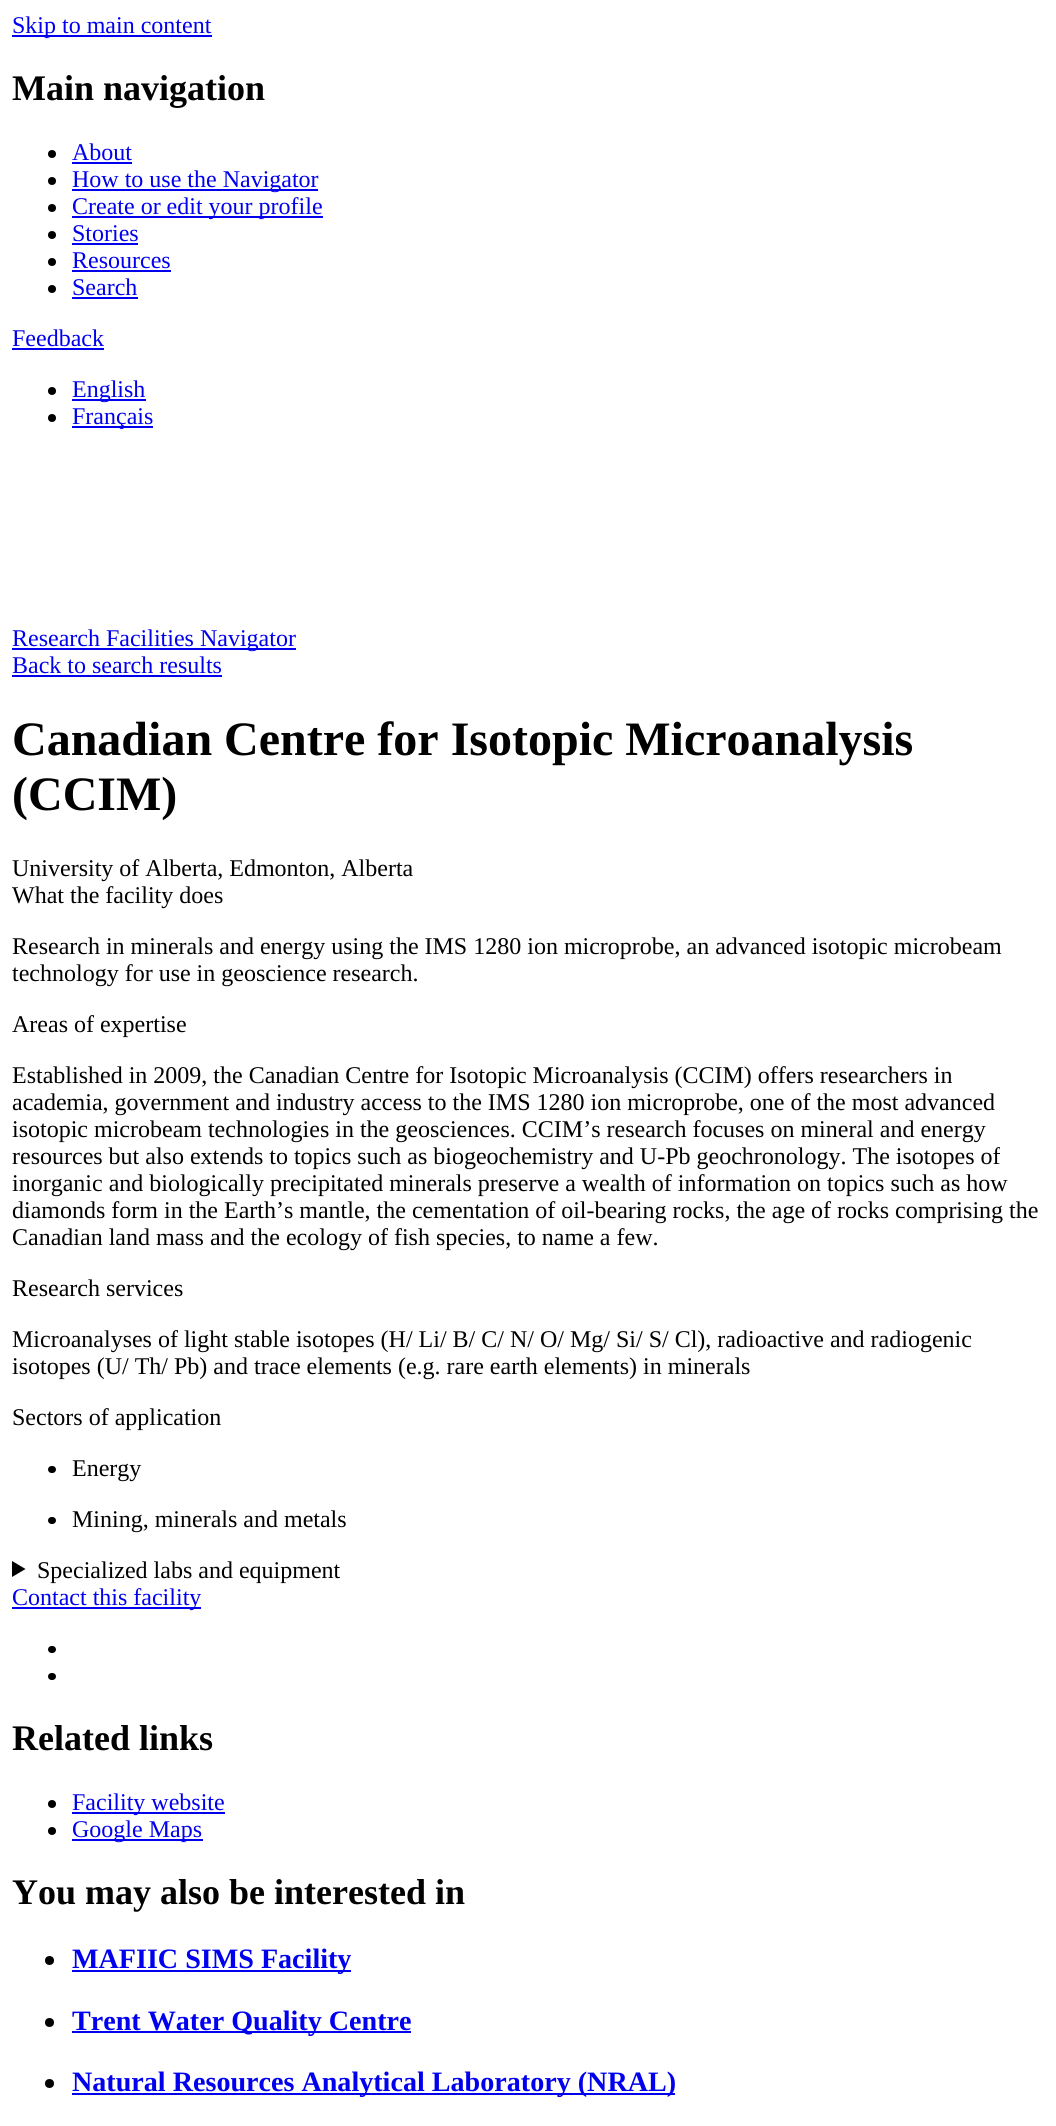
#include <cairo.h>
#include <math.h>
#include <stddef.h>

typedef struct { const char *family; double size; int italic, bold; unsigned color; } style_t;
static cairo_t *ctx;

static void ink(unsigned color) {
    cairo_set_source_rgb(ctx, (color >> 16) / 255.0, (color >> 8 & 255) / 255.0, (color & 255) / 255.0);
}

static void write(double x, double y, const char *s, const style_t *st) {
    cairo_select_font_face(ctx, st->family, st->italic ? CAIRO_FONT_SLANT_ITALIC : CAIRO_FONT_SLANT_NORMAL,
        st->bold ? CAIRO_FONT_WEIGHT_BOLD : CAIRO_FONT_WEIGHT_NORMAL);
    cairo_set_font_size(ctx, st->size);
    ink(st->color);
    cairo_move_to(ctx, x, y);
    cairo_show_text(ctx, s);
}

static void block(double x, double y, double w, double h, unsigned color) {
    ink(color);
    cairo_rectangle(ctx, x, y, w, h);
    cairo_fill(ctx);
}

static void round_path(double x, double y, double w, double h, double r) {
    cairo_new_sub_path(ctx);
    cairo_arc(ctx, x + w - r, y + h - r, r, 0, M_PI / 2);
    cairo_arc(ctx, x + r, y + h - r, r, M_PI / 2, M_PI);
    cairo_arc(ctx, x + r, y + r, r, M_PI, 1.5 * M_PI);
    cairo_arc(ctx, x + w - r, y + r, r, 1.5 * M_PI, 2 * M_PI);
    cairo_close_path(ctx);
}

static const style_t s1 = {"Liberation Serif", 24, 0, 0, 0x0000ee};
static const style_t s2 = {"Liberation Serif", 36, 0, 1, 0x000000};
static const style_t s3 = {"Liberation Serif", 48, 0, 1, 0x000000};
static const style_t s4 = {"Liberation Serif", 24, 0, 0, 0x000000};
static const style_t s5 = {"Liberation Serif", 28.1, 0, 1, 0x0000ee};

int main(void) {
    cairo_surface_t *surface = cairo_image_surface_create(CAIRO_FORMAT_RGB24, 1056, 2126);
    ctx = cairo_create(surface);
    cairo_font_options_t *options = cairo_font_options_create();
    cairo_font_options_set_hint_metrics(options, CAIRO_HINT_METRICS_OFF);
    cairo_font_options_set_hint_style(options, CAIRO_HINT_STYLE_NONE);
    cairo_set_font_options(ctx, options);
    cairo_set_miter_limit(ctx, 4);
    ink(0xffffff);
    cairo_paint(ctx);
    block(12, 35, 200, 2, 0x0000ee);
    write(12, 33, "Skip to main content", &s1);
    write(12, 100, "Main navigation", &s2);
    cairo_new_path(ctx);
    cairo_arc(ctx, 52, 154, 4, 0, 2 * M_PI);
    cairo_fill(ctx);
    write(72, 160, "About", &s1);
    block(72, 162, 60, 2, 0x0000ee);
    ink(0x000000);
    cairo_new_path(ctx);
    cairo_arc(ctx, 52, 181, 4, 0, 2 * M_PI);
    cairo_fill(ctx);
    block(72, 189, 246, 2, 0x0000ee);
    write(72, 187, "How to use the Navigator", &s1);
    ink(0x000000);
    cairo_new_path(ctx);
    cairo_arc(ctx, 52, 208, 4, 0, 2 * M_PI);
    cairo_fill(ctx);
    block(72, 216, 251, 2, 0x0000ee);
    write(72, 214, "Create or edit your profile", &s1);
    ink(0x000000);
    cairo_new_path(ctx);
    cairo_arc(ctx, 52, 235, 4, 0, 2 * M_PI);
    cairo_fill(ctx);
    write(72, 241, "Stories", &s1);
    block(72, 243, 66, 2, 0x0000ee);
    ink(0x000000);
    cairo_new_path(ctx);
    cairo_arc(ctx, 52, 262, 4, 0, 2 * M_PI);
    cairo_fill(ctx);
    write(72, 268, "Resources", &s1);
    block(72, 270, 99, 2, 0x0000ee);
    ink(0x000000);
    cairo_new_path(ctx);
    cairo_arc(ctx, 52, 289, 4, 0, 2 * M_PI);
    cairo_fill(ctx);
    write(72, 295, "Search", &s1);
    block(72, 297, 66, 2, 0x0000ee);
    write(12, 346, "Feedback", &s1);
    block(12, 348, 92, 2, 0x0000ee);
    ink(0x000000);
    cairo_new_path(ctx);
    cairo_arc(ctx, 52, 391, 4, 0, 2 * M_PI);
    cairo_fill(ctx);
    block(72, 399, 74, 2, 0x0000ee);
    write(72, 397, "English", &s1);
    ink(0x000000);
    cairo_new_path(ctx);
    cairo_arc(ctx, 52, 418, 4, 0, 2 * M_PI);
    cairo_fill(ctx);
    block(72, 426, 81, 2, 0x0000ee);
    write(72, 424, "Français", &s1);
    block(12, 648, 284, 2, 0x0000ee);
    write(12, 646, "Research Facilities Navigator", &s1);
    write(12, 673, "Back to search results", &s1);
    block(12, 675, 210, 2, 0x0000ee);
    write(12, 755, "Canadian Centre for Isotopic Microanalysis", &s3);
    write(12, 810, "(CCIM)", &s3);
    write(12, 876, "University of Alberta, Edmonton, Alberta", &s4);
    write(12, 903, "What the facility does", &s4);
    write(12, 954, "Research in minerals and energy using the IMS 1280 ion microprobe, an advanced isotopic microbeam", &s4);
    write(12, 981, "technology for use in geoscience research.", &s4);
    write(12, 1032, "Areas of expertise", &s4);
    write(12, 1083, "Established in 2009, the Canadian Centre for Isotopic Microanalysis (CCIM) offers researchers in", &s4);
    write(12, 1110, "academia, government and industry access to the IMS 1280 ion microprobe, one of the most advanced", &s4);
    write(12, 1137, "isotopic microbeam technologies in the geosciences. CCIM’s research focuses on mineral and energy", &s4);
    write(12, 1164, "resources but also extends to topics such as biogeochemistry and U-Pb geochronology. The isotopes of", &s4);
    write(12, 1191, "inorganic and biologically precipitated minerals preserve a wealth of information on topics such as how", &s4);
    write(12, 1218, "diamonds form in the Earth’s mantle, the cementation of oil-bearing rocks, the age of rocks comprising the", &s4);
    write(12, 1245, "Canadian land mass and the ecology of fish species, to name a few.", &s4);
    write(12, 1296, "Research services", &s4);
    write(12, 1347, "Microanalyses of light stable isotopes (H/ Li/ B/ C/ N/ O/ Mg/ Si/ S/ Cl), radioactive and radiogenic", &s4);
    write(12, 1374, "isotopes (U/ Th/ Pb) and trace elements (e.g. rare earth elements) in minerals", &s4);
    write(12, 1425, "Sectors of application", &s4);
    round_path(48, 1466, 8, 7, 3.5);
    cairo_fill(ctx);
    write(72, 1476, "Energy", &s4);
    round_path(48, 1517, 8, 7, 3.5);
    cairo_fill(ctx);
    write(72, 1527, "Mining, minerals and metals", &s4);
    cairo_new_path(ctx);
    cairo_move_to(ctx, 12, 1561);
    cairo_line_to(ctx, 25.5, 1569);
    cairo_line_to(ctx, 12, 1577);
    cairo_close_path(ctx);
    cairo_fill(ctx);
    write(37, 1578, "Specialized labs and equipment", &s4);
    block(12, 1607, 189, 2, 0x0000ee);
    write(12, 1605, "Contact this facility", &s1);
    ink(0x000000);
    round_path(48, 1646, 8, 7, 3.5);
    cairo_fill(ctx);
    round_path(48, 1673, 8, 7, 3.5);
    cairo_fill(ctx);
    write(12, 1750, "Related links", &s2);
    cairo_new_path(ctx);
    cairo_arc(ctx, 52, 1804, 4, 0, 2 * M_PI);
    cairo_fill(ctx);
    block(72, 1812, 153, 2, 0x0000ee);
    write(72, 1810, "Facility website", &s1);
    ink(0x000000);
    cairo_new_path(ctx);
    cairo_arc(ctx, 52, 1831, 4, 0, 2 * M_PI);
    cairo_fill(ctx);
    block(72, 1839, 131, 2, 0x0000ee);
    write(72, 1837, "Google Maps", &s1);
    write(12, 1904, "You may also be interested in", &s2);
    cairo_new_path(ctx);
    cairo_arc(ctx, 49.5, 1960.5, 4.5, 0, 2 * M_PI);
    cairo_fill(ctx);
    block(72, 1970, 279, 2, 0x0000ee);
    write(72, 1968, "MAFIIC SIMS Facility", &s5);
    ink(0x000000);
    cairo_new_path(ctx);
    cairo_arc(ctx, 49.5, 2022.5, 4.5, 0, 2 * M_PI);
    cairo_fill(ctx);
    block(72, 2031, 339, 2, 0x0000ee);
    write(72, 2030, "Trent Water Quality Centre", &s5);
    ink(0x000000);
    cairo_new_path(ctx);
    cairo_arc(ctx, 49.5, 2083.5, 4.5, 0, 2 * M_PI);
    cairo_fill(ctx);
    block(72, 2093, 603, 2, 0x0000ee);
    write(72, 2091, "Natural Resources Analytical Laboratory (NRAL)", &s5);
    cairo_surface_write_to_png(surface, "screenshot.png");
    cairo_font_options_destroy(options);
    cairo_destroy(ctx);
    cairo_surface_destroy(surface);
    return 0;
}
